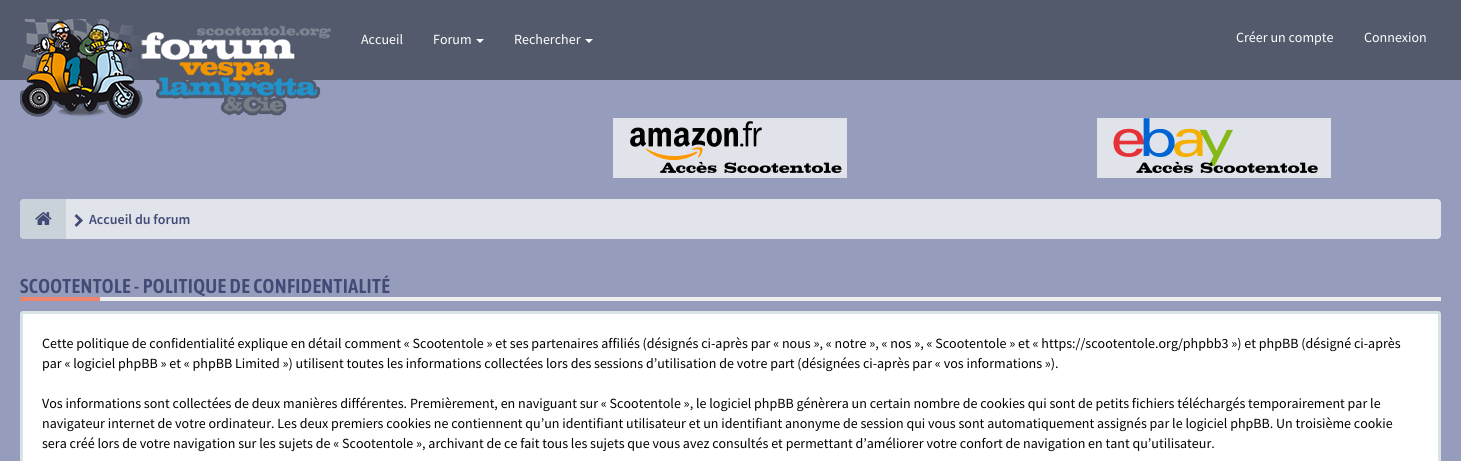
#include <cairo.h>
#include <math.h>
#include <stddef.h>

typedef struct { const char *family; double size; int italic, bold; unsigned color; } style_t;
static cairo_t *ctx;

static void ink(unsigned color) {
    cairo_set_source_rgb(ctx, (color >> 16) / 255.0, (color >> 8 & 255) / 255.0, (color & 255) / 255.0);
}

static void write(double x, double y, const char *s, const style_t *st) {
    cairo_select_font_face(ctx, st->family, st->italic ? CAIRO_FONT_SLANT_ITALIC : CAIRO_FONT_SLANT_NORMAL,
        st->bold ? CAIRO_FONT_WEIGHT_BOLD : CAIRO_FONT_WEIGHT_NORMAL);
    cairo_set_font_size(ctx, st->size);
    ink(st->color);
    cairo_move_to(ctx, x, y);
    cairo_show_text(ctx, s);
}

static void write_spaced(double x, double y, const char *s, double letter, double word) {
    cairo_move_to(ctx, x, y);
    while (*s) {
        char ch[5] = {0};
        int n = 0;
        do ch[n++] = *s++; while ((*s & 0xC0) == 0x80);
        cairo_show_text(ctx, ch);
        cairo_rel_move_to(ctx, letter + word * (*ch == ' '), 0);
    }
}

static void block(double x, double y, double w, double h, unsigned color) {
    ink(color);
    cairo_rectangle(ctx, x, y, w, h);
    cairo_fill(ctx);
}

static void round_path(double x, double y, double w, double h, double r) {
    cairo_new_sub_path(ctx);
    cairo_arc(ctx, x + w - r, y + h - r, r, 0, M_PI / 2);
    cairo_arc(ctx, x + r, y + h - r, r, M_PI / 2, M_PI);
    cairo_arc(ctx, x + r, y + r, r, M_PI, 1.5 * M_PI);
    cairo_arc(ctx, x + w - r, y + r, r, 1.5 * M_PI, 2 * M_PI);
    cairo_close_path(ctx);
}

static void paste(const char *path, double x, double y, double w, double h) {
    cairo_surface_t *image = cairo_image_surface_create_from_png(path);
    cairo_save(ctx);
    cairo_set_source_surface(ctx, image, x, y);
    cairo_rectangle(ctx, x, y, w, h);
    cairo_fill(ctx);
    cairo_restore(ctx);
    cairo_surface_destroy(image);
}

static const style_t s1 = {"Source Sans Pro", 14, 0, 0, 0xffffff};
static const style_t s2 = {"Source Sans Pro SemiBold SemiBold", 14, 0, 0, 0x424a75};
static const style_t s3 = {"Source Sans Pro", 14, 0, 0, 0x000000};

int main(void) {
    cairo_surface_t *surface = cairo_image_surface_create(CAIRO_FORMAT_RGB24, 1461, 461);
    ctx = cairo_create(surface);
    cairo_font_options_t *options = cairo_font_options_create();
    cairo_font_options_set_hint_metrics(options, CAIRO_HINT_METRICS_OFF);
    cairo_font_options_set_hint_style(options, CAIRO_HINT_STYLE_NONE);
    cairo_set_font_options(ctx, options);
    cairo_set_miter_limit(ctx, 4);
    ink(0x959cbc);
    cairo_paint(ctx);
    block(0, 0, 1461, 80, 0x535a6c);
    paste("pic1.png", 20, 19, 311, 100);
    write(361, 44, "Accueil", &s1);
    write(433, 44, "Forum", &s1);
    cairo_new_path(ctx);
    cairo_move_to(ctx, 476, 39);
    cairo_line_to(ctx, 484, 39);
    cairo_line_to(ctx, 480, 43);
    cairo_close_path(ctx);
    cairo_fill(ctx);
    write(514, 44, "Rechercher", &s1);
    cairo_new_path(ctx);
    cairo_move_to(ctx, 585, 39);
    cairo_line_to(ctx, 593, 39);
    cairo_line_to(ctx, 589, 43);
    cairo_close_path(ctx);
    cairo_fill(ctx);
    write(1236, 42, "Créer un compte", &s1);
    write(1364, 42, "Connexion", &s1);
    paste("pic2.png", 613, 118, 234, 60);
    paste("pic3.png", 1097, 118, 234, 60);
    ink(0xe1e5eb);
    round_path(20, 199, 1421, 40, 4);
    cairo_fill(ctx);
    ink(0xc8d2d8);
    cairo_new_path(ctx);
    cairo_move_to(ctx, 24, 199);
    cairo_line_to(ctx, 66, 199);
    cairo_line_to(ctx, 66, 239);
    cairo_line_to(ctx, 24, 239);
    cairo_curve_to(ctx, 22, 239, 20, 237, 20, 235);
    cairo_line_to(ctx, 20, 203);
    cairo_curve_to(ctx, 20, 201, 22, 199, 24, 199);
    cairo_close_path(ctx);
    cairo_fill(ctx);
    paste("pic4.png", 35, 212, 17, 13);
    paste("pic5.png", 74, 214, 9, 13);
    write(89, 224, "Accueil du forum", &s2);
    block(100, 297, 1341, 4, 0xeeeeee);
    cairo_select_font_face(ctx, "Asap Condensed SemiBold", CAIRO_FONT_SLANT_NORMAL, CAIRO_FONT_WEIGHT_NORMAL);
    cairo_set_font_size(ctx, 20);
    ink(0x424a75);
    write_spaced(20, 293, "SCOOTENTOLE - POLITIQUE DE CONFIDENTIALITÉ", 0.4, 0);
    block(20, 297, 80, 4, 0xee836e);
    ink(0xffffff);
    round_path(21.5, 312.5, 1418, 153, 1.5);
    cairo_fill_preserve(ctx);
    ink(0xd8e3e6);
    cairo_set_line_width(ctx, 3);
    cairo_stroke(ctx);
    write(42, 348, "Cette politique de confidentialité explique en détail comment « Scootentole » et ses partenaires affiliés (désignés ci-après par « nous », « notre », « nos », « Scootentole » et « https://scootentole.org/phpbb3 ») et phpBB (désigné ci-après", &s3);
    write(42, 368, "par « logiciel phpBB » et « phpBB Limited ») utilisent toutes les informations collectées lors des sessions d’utilisation de votre part (désignées ci-après par « vos informations »).", &s3);
    write(42, 408, "Vos informations sont collectées de deux manières différentes. Premièrement, en naviguant sur « Scootentole », le logiciel phpBB génèrera un certain nombre de cookies qui sont de petits fichiers téléchargés temporairement par le", &s3);
    write(42, 428, "navigateur internet de votre ordinateur. Les deux premiers cookies ne contiennent qu’un identifiant utilisateur et un identifiant anonyme de session qui vous sont automatiquement assignés par le logiciel phpBB. Un troisième cookie", &s3);
    write(42, 448, "sera créé lors de votre navigation sur les sujets de « Scootentole », archivant de ce fait tous les sujets que vous avez consultés et permettant d’améliorer votre confort de navigation en tant qu’utilisateur.", &s3);
    cairo_surface_write_to_png(surface, "screenshot.png");
    cairo_font_options_destroy(options);
    cairo_destroy(ctx);
    cairo_surface_destroy(surface);
    return 0;
}
